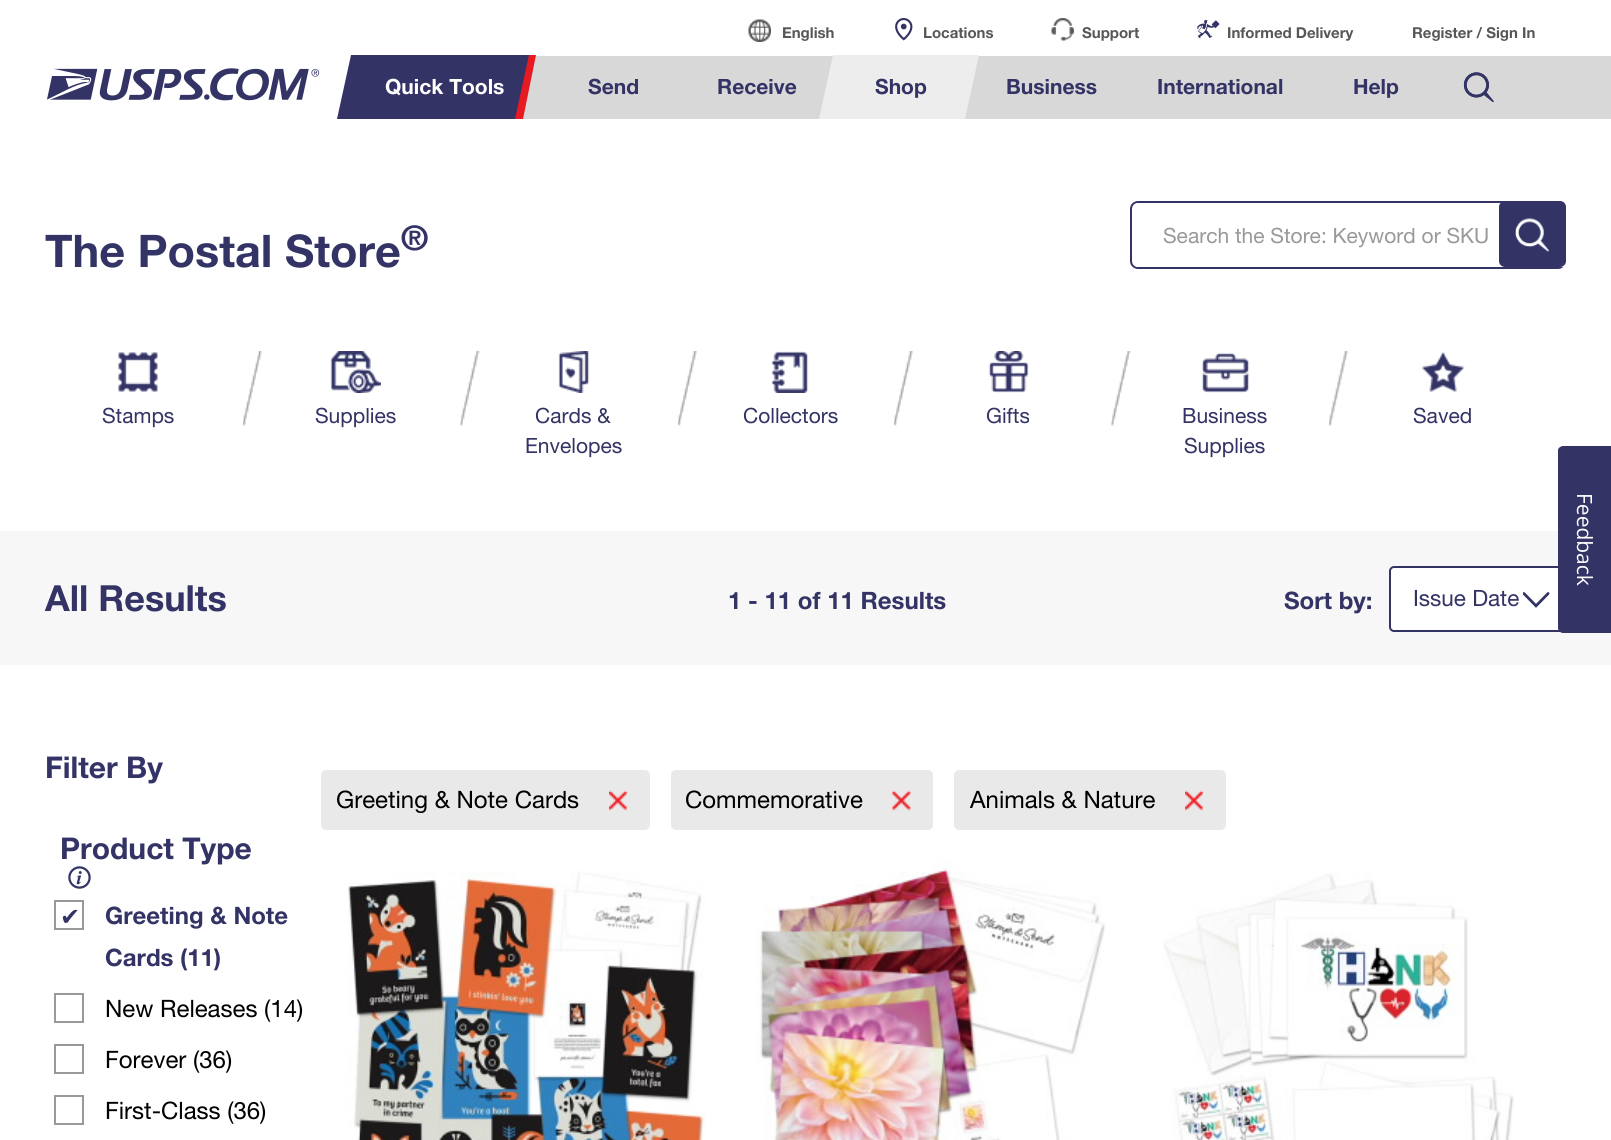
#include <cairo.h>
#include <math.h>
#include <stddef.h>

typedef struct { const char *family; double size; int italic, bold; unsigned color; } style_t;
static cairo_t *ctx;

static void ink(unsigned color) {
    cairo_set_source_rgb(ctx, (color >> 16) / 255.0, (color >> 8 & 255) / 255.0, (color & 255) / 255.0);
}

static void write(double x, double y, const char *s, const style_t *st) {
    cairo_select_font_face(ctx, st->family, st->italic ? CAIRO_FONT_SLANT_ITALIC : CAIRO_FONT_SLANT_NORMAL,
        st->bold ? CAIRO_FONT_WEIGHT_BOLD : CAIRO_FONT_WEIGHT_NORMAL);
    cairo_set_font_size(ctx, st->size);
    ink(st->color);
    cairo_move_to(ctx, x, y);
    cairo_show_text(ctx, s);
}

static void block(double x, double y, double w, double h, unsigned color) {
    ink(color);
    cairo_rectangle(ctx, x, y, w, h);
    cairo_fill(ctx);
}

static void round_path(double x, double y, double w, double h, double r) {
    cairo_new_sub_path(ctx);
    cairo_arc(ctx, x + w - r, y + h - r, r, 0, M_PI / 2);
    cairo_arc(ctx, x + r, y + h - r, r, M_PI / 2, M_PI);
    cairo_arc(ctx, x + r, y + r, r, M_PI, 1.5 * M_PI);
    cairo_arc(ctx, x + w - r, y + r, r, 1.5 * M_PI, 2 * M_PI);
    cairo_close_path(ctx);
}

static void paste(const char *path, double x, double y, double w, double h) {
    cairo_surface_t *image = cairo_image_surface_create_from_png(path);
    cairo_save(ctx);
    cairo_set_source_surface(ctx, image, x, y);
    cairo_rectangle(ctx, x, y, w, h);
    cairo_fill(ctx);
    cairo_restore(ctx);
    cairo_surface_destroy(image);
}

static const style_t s1 = {"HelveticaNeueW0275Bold", 15, 0, 1, 0x575757};
static const style_t s2 = {"HelveticaNeueW0275Bold", 21, 0, 1, 0xffffff};
static const style_t s3 = {"HelveticaNeueW0275Bold", 21, 0, 1, 0x333366};
static const style_t s4 = {"HelveticaNeueW0275Bold", 45, 0, 1, 0x333366};
static const style_t s5 = {"HelveticaNeueW0275Bold", 34, 0, 1, 0x333366};
static const style_t s6 = {"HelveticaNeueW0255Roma", 21, 0, 0, 0x333366};
static const style_t s7 = {"HelveticaNeueW0255Roma", 21, 0, 0, 0x999999};
static const style_t s8 = {"HelveticaNeueW0275Bold", 36, 0, 1, 0x333366};
static const style_t s9 = {"HelveticaNeueW0275Bold", 24, 0, 1, 0x333366};
static const style_t s10 = {"HelveticaNeueW0255Roma", 22.5, 0, 0, 0x333366};
static const style_t s11 = {"HelveticaNeueW0275Bold", 30, 0, 1, 0x333366};
static const style_t s12 = {"DejaVu Sans", 24, 0, 0, 0x333366};
static const style_t s13 = {"HelveticaNeueW0255Roma", 24, 0, 0, 0x000000};
static const style_t s14 = {"Open Sans", 21, 0, 0, 0xffffff};

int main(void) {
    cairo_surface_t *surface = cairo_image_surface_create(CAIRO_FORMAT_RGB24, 1611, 1140);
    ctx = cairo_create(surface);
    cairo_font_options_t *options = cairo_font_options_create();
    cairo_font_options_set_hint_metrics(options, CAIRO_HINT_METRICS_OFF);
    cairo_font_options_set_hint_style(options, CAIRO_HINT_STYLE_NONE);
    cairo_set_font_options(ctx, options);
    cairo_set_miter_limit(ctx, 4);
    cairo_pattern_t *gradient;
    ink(0xffffff);
    cairo_paint(ctx);
    paste("pic1.png", 748, 19, 23, 23);
    write(782, 38, "English", &s1);
    paste("pic2.png", 895, 18, 18, 23);
    write(923, 38, "Locations", &s1);
    paste("pic3.png", 1051, 18, 23, 23);
    write(1082, 38, "Support", &s1);
    paste("pic4.png", 1197, 19, 23, 20);
    write(1227, 38, "Informed Delivery", &s1);
    write(1412, 38, "Register / Sign In", &s1);
    gradient = cairo_pattern_create_linear(0, 87, 1611, 87);
    cairo_pattern_add_color_stop_rgba(gradient, 0.4, 1, 1, 1, 1);
    cairo_pattern_add_color_stop_rgba(gradient, 0.41, 0.847, 0.847, 0.847, 1);
    cairo_set_source(ctx, gradient);
    cairo_pattern_destroy(gradient);
    cairo_rectangle(ctx, 645, 56, 966, 63);
    cairo_fill(ctx);
    paste("pic5.png", 47, 68, 273, 33);
    block(523, 56, 136, 63, 0xd8d8d8);
    ink(0x333366);
    cairo_new_path(ctx);
    cairo_move_to(ctx, 351, 55);
    cairo_line_to(ctx, 533, 55);
    cairo_line_to(ctx, 520, 119);
    cairo_line_to(ctx, 337, 119);
    cairo_close_path(ctx);
    cairo_fill(ctx);
    write(385, 94, "Quick Tools", &s2);
    ink(0xe71921);
    cairo_new_path(ctx);
    cairo_move_to(ctx, 529, 55);
    cairo_line_to(ctx, 536, 55);
    cairo_line_to(ctx, 523, 119);
    cairo_line_to(ctx, 515, 119);
    cairo_close_path(ctx);
    cairo_fill(ctx);
    write(588, 94, "Send", &s3);
    write(717, 94, "Receive", &s3);
    ink(0xededed);
    cairo_new_path(ctx);
    cairo_move_to(ctx, 833, 55);
    cairo_line_to(ctx, 979, 55);
    cairo_line_to(ctx, 965, 119);
    cairo_line_to(ctx, 819, 119);
    cairo_close_path(ctx);
    cairo_fill(ctx);
    write(875, 94, "Shop", &s3);
    write(1006, 94, "Business", &s3);
    write(1157, 94, "International", &s3);
    write(1353, 94, "Help", &s3);
    paste("pic6.png", 1463, 72, 31, 30);
    write(45, 267, "The Postal Store", &s4);
    write(401, 250, "®", &s5);
    paste("pic7.png", 118, 352, 40, 40);
    write(102, 423, "Stamps", &s6);
    paste("pic8.png", 243, 351, 19, 75);
    paste("pic9.png", 330, 351, 51, 42);
    write(315, 423, "Supplies", &s6);
    paste("pic10.png", 460, 351, 20, 75);
    paste("pic8.png", 678, 351, 19, 75);
    paste("pic11.png", 558, 351, 32, 42);
    write(535, 423, "Cards &", &s6);
    write(525, 453, "Envelopes", &s6);
    paste("pic12.png", 771, 351, 38, 42);
    write(743, 423, "Collectors", &s6);
    paste("pic8.png", 894, 351, 19, 75);
    paste("pic13.png", 988, 351, 41, 42);
    write(986, 423, "Gifts", &s6);
    paste("pic10.png", 1111, 351, 20, 75);
    paste("pic14.png", 1329, 351, 19, 75);
    paste("pic15.png", 1201, 352, 49, 41);
    write(1182, 423, "Business", &s6);
    write(1184, 453, "Supplies", &s6);
    paste("pic16.png", 1421, 352, 44, 40);
    write(1413, 423, "Saved", &s6);
    round_path(1131, 202, 434, 66, 7);
    cairo_stroke(ctx);
    ink(0xffffff);
    round_path(1133, 203, 438, 64, 5);
    cairo_fill(ctx);
    write(1163, 243, "Search the Store: Keyword or SKU", &s7);
    ink(0x333366);
    round_path(1499, 201, 67, 66, 6);
    cairo_fill(ctx);
    paste("pic17.png", 1515, 218, 35, 34);
    block(0, 531, 1611, 134, 0xf7f7f7);
    write(45, 611, "All Results", &s8);
    write(728, 609, "1 - 11 of 11 Results", &s9);
    write(1284, 609, "Sort by:", &s9);
    ink(0xffffff);
    round_path(1389, 566, 177, 66, 5);
    cairo_fill(ctx);
    paste("pic18.png", 1523, 592, 27, 16);
    round_path(1390, 567, 175, 64, 4);
    ink(0x333366);
    cairo_stroke(ctx);
    write(1413, 606, "Issue Date", &s10);
    write(45, 778, "Filter By", &s11);
    write(60, 859, "Product Type", &s11);
    paste("pic19.png", 68, 866, 23, 23);
    cairo_rectangle(ctx, 55, 901, 28, 28);
    ink(0x999999);
    cairo_stroke(ctx);
    write(60, 925, "✔", &s12);
    write(105, 924, "Greeting & Note", &s9);
    write(105, 966, "Cards (11)", &s9);
    cairo_rectangle(ctx, 55, 994, 28, 28);
    ink(0x999999);
    cairo_stroke(ctx);
    write(105, 1017, "New Releases (14)", &s13);
    cairo_rectangle(ctx, 55, 1045, 28, 28);
    ink(0x999999);
    cairo_stroke(ctx);
    write(105, 1068, "Forever (36)", &s13);
    cairo_rectangle(ctx, 55, 1096, 28, 28);
    ink(0x999999);
    cairo_stroke(ctx);
    write(105, 1119, "First-Class (36)", &s13);
    ink(0xe9e9e9);
    round_path(321, 770, 329, 60, 5);
    cairo_fill(ctx);
    write(336, 808, "Greeting & Note Cards", &s13);
    paste("pic20.png", 609, 790, 18, 21);
    ink(0xe9e9e9);
    round_path(671, 770, 262, 60, 5);
    cairo_fill(ctx);
    write(685, 808, "Commemorative", &s13);
    paste("pic21.png", 892, 790, 19, 21);
    ink(0xe9e9e9);
    round_path(954, 770, 272, 60, 5);
    cairo_fill(ctx);
    write(970, 808, "Animals & Nature", &s13);
    paste("pic22.png", 1185, 790, 18, 21);
    paste("pic23.png", 348, 871, 358, 269);
    paste("pic24.png", 757, 859, 349, 281);
    paste("pic25.png", 1163, 872, 351, 268);
    ink(0x333366);
    cairo_new_path(ctx);
    cairo_move_to(ctx, 1611, 446);
    cairo_line_to(ctx, 1611, 633);
    cairo_line_to(ctx, 1563, 633);
    cairo_curve_to(ctx, 1561, 633, 1558, 631, 1558, 628);
    cairo_line_to(ctx, 1558, 450);
    cairo_curve_to(ctx, 1558, 448, 1561, 446, 1563, 446);
    cairo_close_path(ctx);
    cairo_fill(ctx);
    cairo_save(ctx);
    cairo_translate(ctx, 1577, 493);
    cairo_rotate(ctx, 90 * M_PI / 180);
    write(0, 0, "Feedback", &s14);
    cairo_restore(ctx);
    cairo_surface_write_to_png(surface, "screenshot.png");
    cairo_font_options_destroy(options);
    cairo_destroy(ctx);
    cairo_surface_destroy(surface);
    return 0;
}
